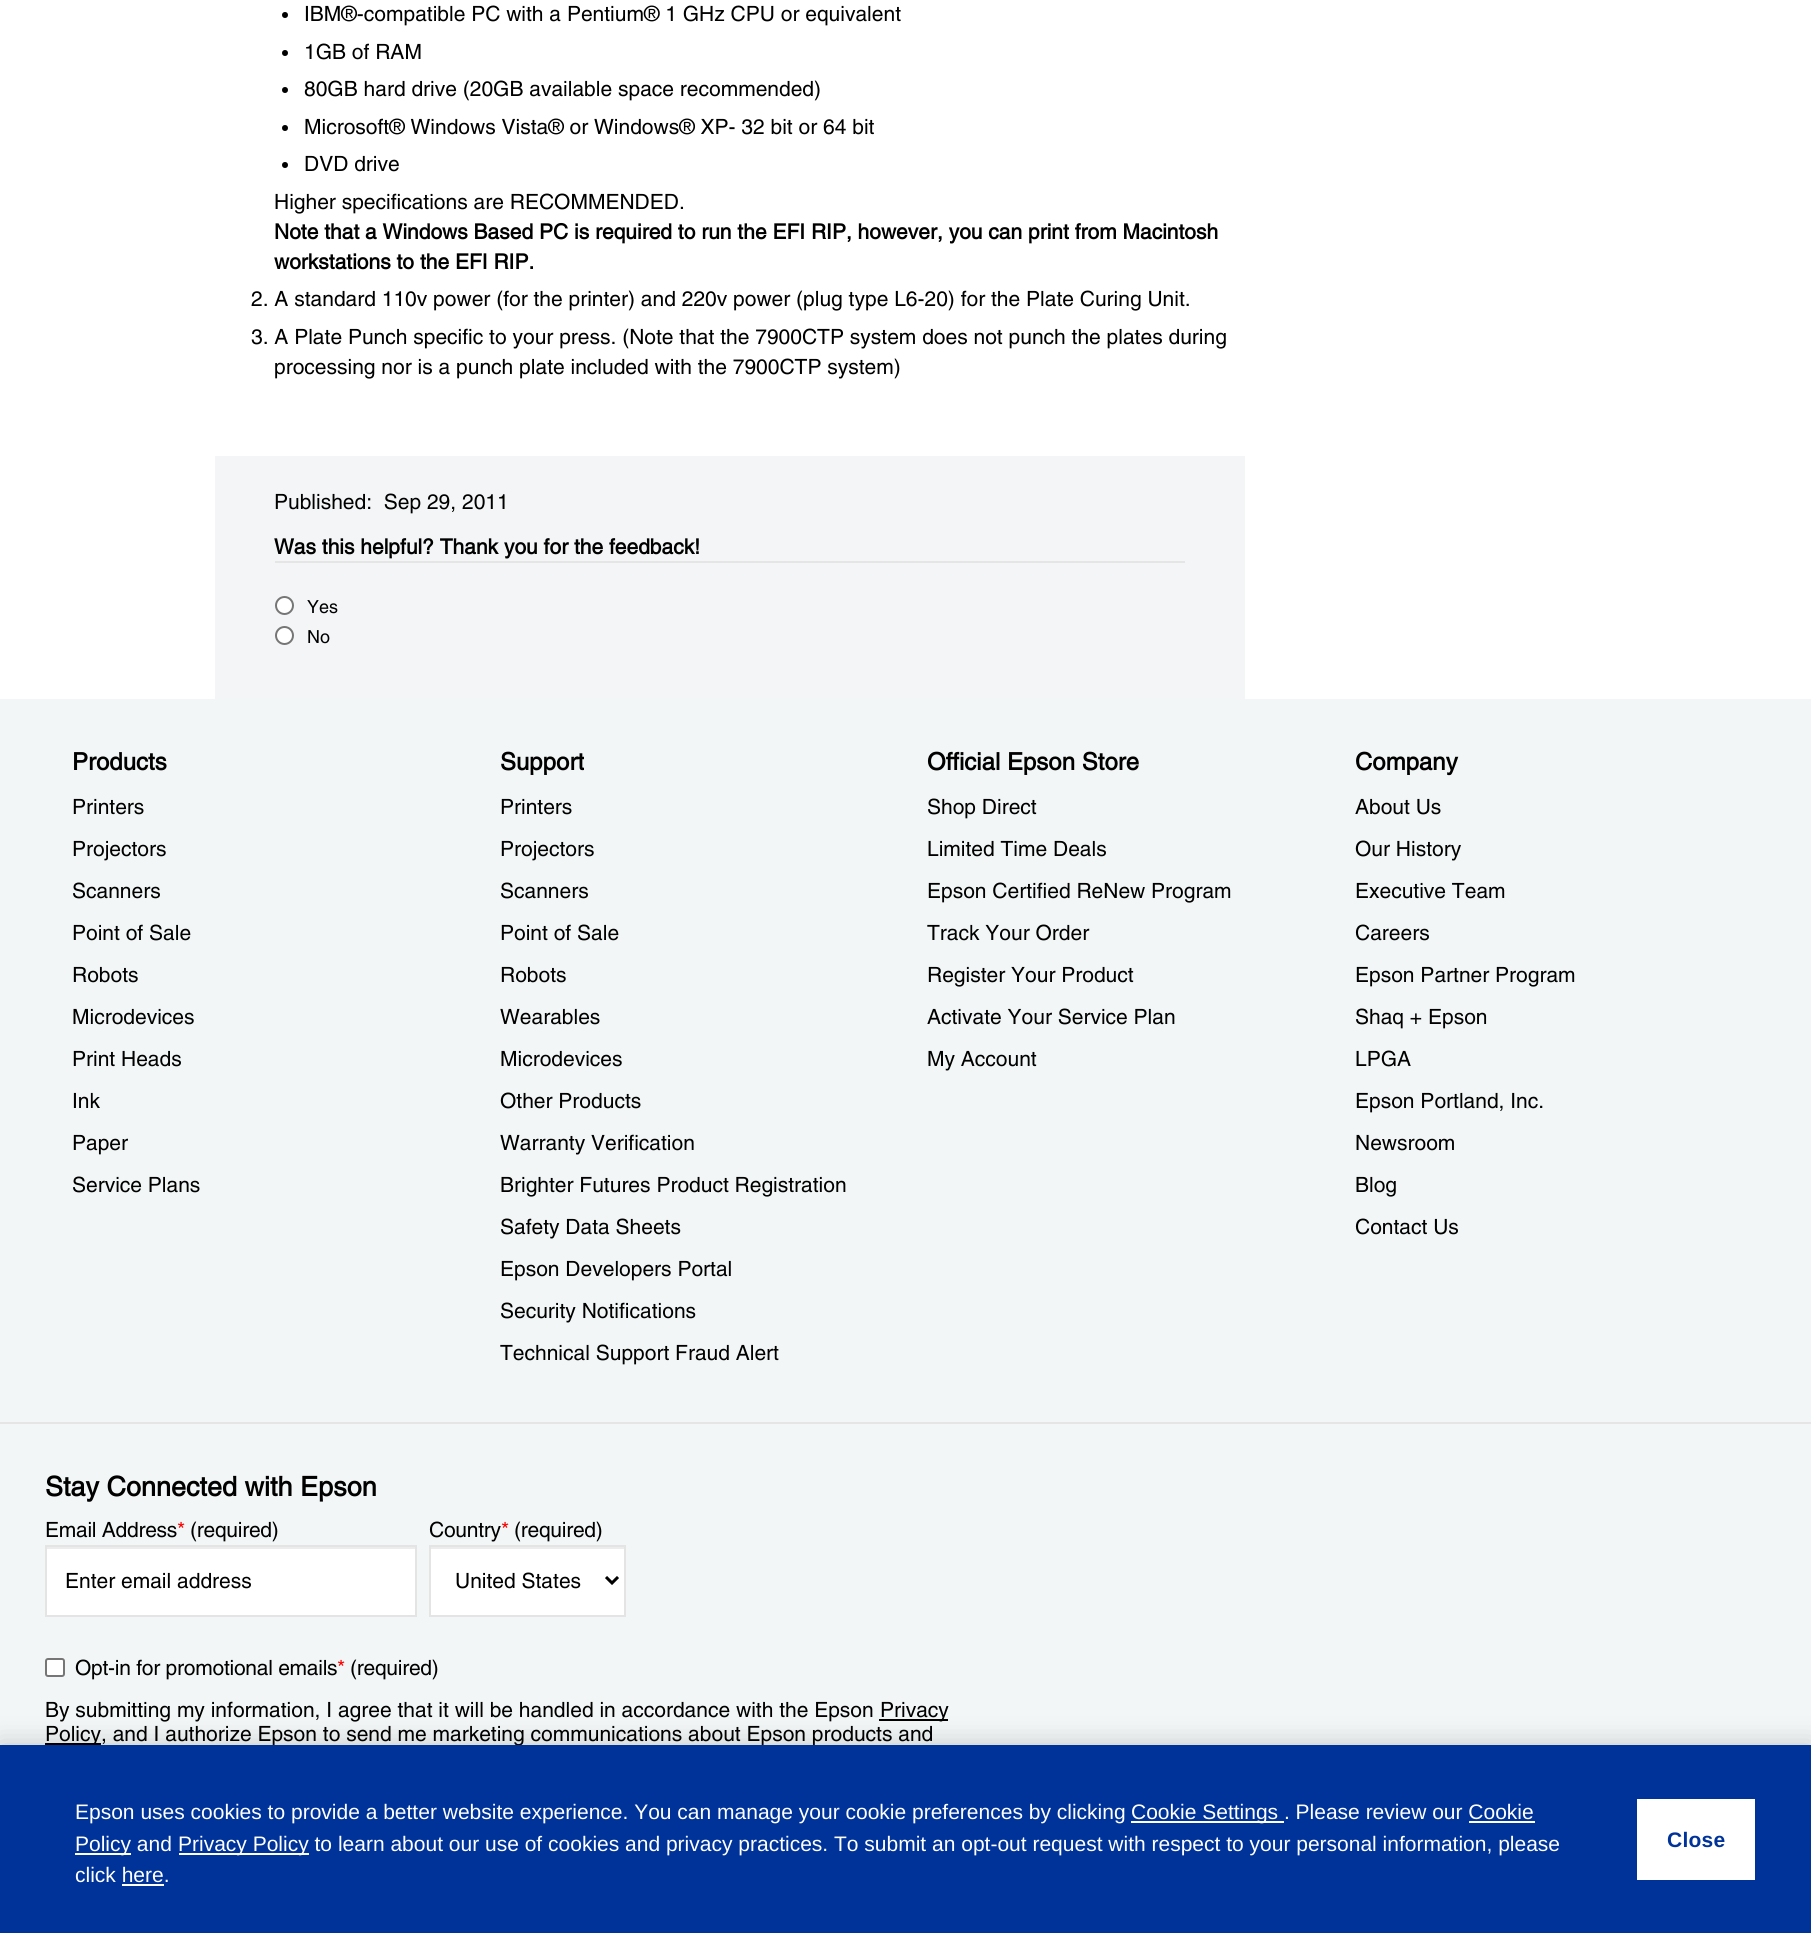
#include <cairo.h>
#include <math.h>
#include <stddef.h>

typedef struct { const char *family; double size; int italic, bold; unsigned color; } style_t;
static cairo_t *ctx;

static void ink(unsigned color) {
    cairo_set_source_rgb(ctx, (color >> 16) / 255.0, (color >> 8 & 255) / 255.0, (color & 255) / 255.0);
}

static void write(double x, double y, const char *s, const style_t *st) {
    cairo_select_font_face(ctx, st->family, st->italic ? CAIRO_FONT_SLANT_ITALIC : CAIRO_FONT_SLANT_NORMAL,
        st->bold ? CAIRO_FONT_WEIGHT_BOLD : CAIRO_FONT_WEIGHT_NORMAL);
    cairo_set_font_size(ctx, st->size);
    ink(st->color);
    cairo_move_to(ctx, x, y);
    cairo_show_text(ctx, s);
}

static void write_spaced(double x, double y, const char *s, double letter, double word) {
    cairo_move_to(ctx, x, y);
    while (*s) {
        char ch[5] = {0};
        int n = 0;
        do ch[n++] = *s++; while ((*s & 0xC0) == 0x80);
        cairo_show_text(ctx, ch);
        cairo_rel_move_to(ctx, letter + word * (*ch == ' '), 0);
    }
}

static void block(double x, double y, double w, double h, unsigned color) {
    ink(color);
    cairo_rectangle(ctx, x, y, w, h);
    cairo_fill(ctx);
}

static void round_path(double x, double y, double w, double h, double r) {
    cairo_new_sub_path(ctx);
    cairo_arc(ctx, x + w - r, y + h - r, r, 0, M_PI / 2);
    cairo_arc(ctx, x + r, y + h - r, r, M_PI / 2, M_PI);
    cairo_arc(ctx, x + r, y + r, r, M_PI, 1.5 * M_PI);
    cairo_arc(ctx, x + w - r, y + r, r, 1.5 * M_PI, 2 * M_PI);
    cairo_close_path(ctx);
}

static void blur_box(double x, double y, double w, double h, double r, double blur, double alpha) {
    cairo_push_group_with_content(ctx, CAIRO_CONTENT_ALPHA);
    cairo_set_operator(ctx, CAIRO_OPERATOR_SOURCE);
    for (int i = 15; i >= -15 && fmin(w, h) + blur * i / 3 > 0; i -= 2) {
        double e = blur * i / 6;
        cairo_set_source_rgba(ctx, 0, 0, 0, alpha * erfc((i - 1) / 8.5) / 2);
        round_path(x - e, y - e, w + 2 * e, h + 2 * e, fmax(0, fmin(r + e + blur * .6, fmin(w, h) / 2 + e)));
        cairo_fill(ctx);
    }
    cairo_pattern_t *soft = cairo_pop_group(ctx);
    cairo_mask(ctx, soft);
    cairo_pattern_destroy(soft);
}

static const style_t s1 = {"Helvetica", 21, 0, 0, 0x000000};
static const style_t s2 = {"Helvetica", 21, 0, 1, 0x000000};
static const style_t s3 = {"Helvetica", 18, 0, 0, 0x000000};
static const style_t s4 = {"Helvetica", 24, 0, 1, 0x000000};
static const style_t s5 = {"Helvetica", 27, 0, 1, 0x000000};
static const style_t s6 = {"Liberation Sans", 21, 0, 0, 0xffffff};

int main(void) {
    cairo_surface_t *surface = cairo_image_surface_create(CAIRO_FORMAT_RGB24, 1811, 1933);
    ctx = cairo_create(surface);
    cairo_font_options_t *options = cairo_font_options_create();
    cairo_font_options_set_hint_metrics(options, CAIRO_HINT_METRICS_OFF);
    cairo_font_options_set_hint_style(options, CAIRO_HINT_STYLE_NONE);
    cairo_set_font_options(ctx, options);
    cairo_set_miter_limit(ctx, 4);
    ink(0xffffff);
    cairo_paint(ctx);
    ink(0x000000);
    cairo_arc(ctx, 285, 15, 3, 0, 2 * M_PI);
    cairo_fill(ctx);
    write(304, 21, "IBM®-compatible PC with a Pentium® 1 GHz CPU or equivalent", &s1);
    cairo_new_path(ctx);
    cairo_arc(ctx, 285, 53, 3, 0, 2 * M_PI);
    cairo_fill(ctx);
    write(304, 59, "1GB of RAM", &s1);
    cairo_new_path(ctx);
    cairo_arc(ctx, 285, 90, 3, 0, 2 * M_PI);
    cairo_fill(ctx);
    write(304, 96, "80GB hard drive (20GB available space recommended)", &s1);
    cairo_new_path(ctx);
    cairo_arc(ctx, 285, 128, 3, 0, 2 * M_PI);
    cairo_fill(ctx);
    write(304, 134, "Microsoft® Windows Vista® or Windows® XP- 32 bit or 64 bit", &s1);
    cairo_new_path(ctx);
    cairo_arc(ctx, 285, 165, 3, 0, 2 * M_PI);
    cairo_fill(ctx);
    write(304, 171, "DVD drive", &s1);
    write(274, 209, "Higher specifications are RECOMMENDED.", &s1);
    write(274, 239, "Note that a Windows Based PC is required to run the EFI RIP, however, you can print from Macintosh", &s2);
    write(274, 269, "workstations to the EFI RIP.", &s2);
    write(251, 306, "2. A standard 110v power (for the printer) and 220v power (plug type L6-20) for the Plate Curing Unit.", &s1);
    write(251, 344, "3. A Plate Punch specific to your press. (Note that the 7900CTP system does not punch the plates during", &s1);
    write(274, 374, "processing nor is a punch plate included with the 7900CTP system)", &s1);
    block(215, 456, 1030, 243, 0xf4f5f7);
    write(274, 509, "Published:  Sep 29, 2011", &s1);
    write(274, 554, "Was this helpful? Thank you for the feedback!", &s2);
    block(275, 561, 910, 2, 0xe5e5e5);
    ink(0xffffff);
    cairo_new_path(ctx);
    cairo_arc(ctx, 284.5, 605.5, 8.5, 0, 2 * M_PI);
    cairo_fill_preserve(ctx);
    ink(0x767676);
    cairo_stroke(ctx);
    write(307, 613, "Yes", &s3);
    ink(0xffffff);
    cairo_new_path(ctx);
    cairo_arc(ctx, 284.5, 635.5, 8.5, 0, 2 * M_PI);
    cairo_fill_preserve(ctx);
    ink(0x767676);
    cairo_stroke(ctx);
    write(307, 643, "No", &s3);
    block(0, 699, 1811, 1046, 0xf2f6f6);
    write(72, 770, "Products", &s4);
    write(72, 814, "Printers", &s1);
    write(72, 856, "Projectors", &s1);
    write(72, 898, "Scanners", &s1);
    write(72, 940, "Point of Sale", &s1);
    write(72, 982, "Robots", &s1);
    write(72, 1024, "Microdevices", &s1);
    write(72, 1066, "Print Heads", &s1);
    write(72, 1108, "Ink", &s1);
    write(72, 1150, "Paper", &s1);
    write(72, 1192, "Service Plans", &s1);
    write(500, 770, "Support", &s4);
    write(500, 814, "Printers", &s1);
    write(500, 856, "Projectors", &s1);
    write(500, 898, "Scanners", &s1);
    write(500, 940, "Point of Sale", &s1);
    write(500, 982, "Robots", &s1);
    write(500, 1024, "Wearables", &s1);
    write(500, 1066, "Microdevices", &s1);
    write(500, 1108, "Other Products", &s1);
    write(500, 1150, "Warranty Verification", &s1);
    write(500, 1192, "Brighter Futures Product Registration", &s1);
    write(500, 1234, "Safety Data Sheets", &s1);
    write(500, 1276, "Epson Developers Portal", &s1);
    write(500, 1318, "Security Notifications", &s1);
    write(500, 1360, "Technical Support Fraud Alert", &s1);
    write(927, 770, "Official Epson Store", &s4);
    write(927, 814, "Shop Direct", &s1);
    write(927, 856, "Limited Time Deals", &s1);
    write(927, 898, "Epson Certified ReNew Program", &s1);
    write(927, 940, "Track Your Order", &s1);
    write(927, 982, "Register Your Product", &s1);
    write(927, 1024, "Activate Your Service Plan", &s1);
    write(927, 1066, "My Account", &s1);
    write(1355, 770, "Company", &s4);
    write(1355, 814, "About Us", &s1);
    write(1355, 856, "Our History", &s1);
    write(1355, 898, "Executive Team", &s1);
    write(1355, 940, "Careers", &s1);
    write(1355, 982, "Epson Partner Program", &s1);
    write(1355, 1024, "Shaq + Epson", &s1);
    write(1355, 1066, "LPGA", &s1);
    write(1355, 1108, "Epson Portland, Inc.", &s1);
    write(1355, 1150, "Newsroom", &s1);
    write(1355, 1192, "Blog", &s1);
    write(1355, 1234, "Contact Us", &s1);
    block(0, 1422, 1811, 2, 0xe5e5e5);
    write(45, 1496, "Stay Connected with Epson", &s5);
    cairo_select_font_face(ctx, "Helvetica", CAIRO_FONT_SLANT_NORMAL, CAIRO_FONT_WEIGHT_NORMAL);
    cairo_set_font_size(ctx, 21);
    write_spaced(45, 1537, "Email Address", -0.25, 0);
    ink(0xff0000);
    write_spaced(177, 1537, "*", -0.25, 0);
    ink(0x000000);
    write_spaced(190, 1537, "(required)", -0.25, 0);
    block(47, 1549, 368, 66, 0xffffff);
    block(47, 1547, 369, 2, 0xececec);
    cairo_rectangle(ctx, 46, 1546, 370, 70);
    ink(0xe4e4e4);
    cairo_stroke(ctx);
    write(65, 1588, "Enter email address", &s1);
    write_spaced(429, 1537, "Country", -0.25, 0);
    ink(0xff0000);
    write_spaced(501, 1537, "*", -0.25, 0);
    ink(0x000000);
    write_spaced(514, 1537, "(required)", -0.25, 0);
    block(431, 1549, 193, 66, 0xffffff);
    block(431, 1547, 193, 2, 0xececec);
    cairo_rectangle(ctx, 430, 1546, 195, 70);
    ink(0xe4e4e4);
    cairo_stroke(ctx);
    cairo_new_path(ctx);
    cairo_move_to(ctx, 606, 1577);
    cairo_line_to(ctx, 612, 1583);
    cairo_line_to(ctx, 618, 1577);
    ink(0x000000);
    cairo_set_line_width(ctx, 3);
    cairo_stroke(ctx);
    write(455, 1588, "United States", &s1);
    ink(0xffffff);
    round_path(46, 1659, 18, 17, 2);
    cairo_fill_preserve(ctx);
    ink(0x767676);
    cairo_set_line_width(ctx, 2);
    cairo_stroke(ctx);
    ink(0x000000);
    write_spaced(75, 1675, "Opt-in for promotional emails", -0.25, 0);
    ink(0xff0000);
    write_spaced(337, 1675, "*", -0.25, 0);
    ink(0x000000);
    write_spaced(350, 1675, "(required)", -0.25, 0);
    write(45, 1717, "By submitting my information, I agree that it will be handled in accordance with the Epson", &s1);
    block(879, 1719, 69, 2, 0x000000);
    write(880, 1717, "Privacy", &s1);
    block(45, 1743, 56, 2, 0x000000);
    write(45, 1741, "Policy, and I authorize Epson to send me marketing communications about Epson products and", &s1);
    ink(0x000000);
    blur_box(0, 1745, 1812, 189, 0, 13.5, 0.2);
    block(0, 1745, 1811, 188, 0x003399);
    write(75, 1819, "Epson uses cookies to provide a better website experience. You can manage your cookie preferences by clicking", &s6);
    block(1131, 1821, 153, 2, 0xffffff);
    write(1131, 1819, "Cookie Settings . Please review our Cookie", &s6);
    block(75, 1853, 56, 2, 0xffffff);
    write(75, 1851, "Policy and", &s6);
    block(1469, 1821, 66, 2, 0xffffff);
    block(179, 1853, 130, 2, 0xffffff);
    write(178, 1851, "Privacy Policy to learn about our use of cookies and privacy practices. To submit an opt-out request with respect to your personal information, please", &s6);
    write(75, 1882, "click here.", &s6);
    block(122, 1884, 42, 2, 0xffffff);
    block(1637, 1799, 118, 81, 0xffffff);
    cairo_select_font_face(ctx, "Liberation Sans", CAIRO_FONT_SLANT_NORMAL, CAIRO_FONT_WEIGHT_BOLD);
    ink(0x003399);
    write_spaced(1667, 1847, "Close", 0.25, 0);
    cairo_surface_write_to_png(surface, "screenshot.png");
    cairo_font_options_destroy(options);
    cairo_destroy(ctx);
    cairo_surface_destroy(surface);
    return 0;
}
